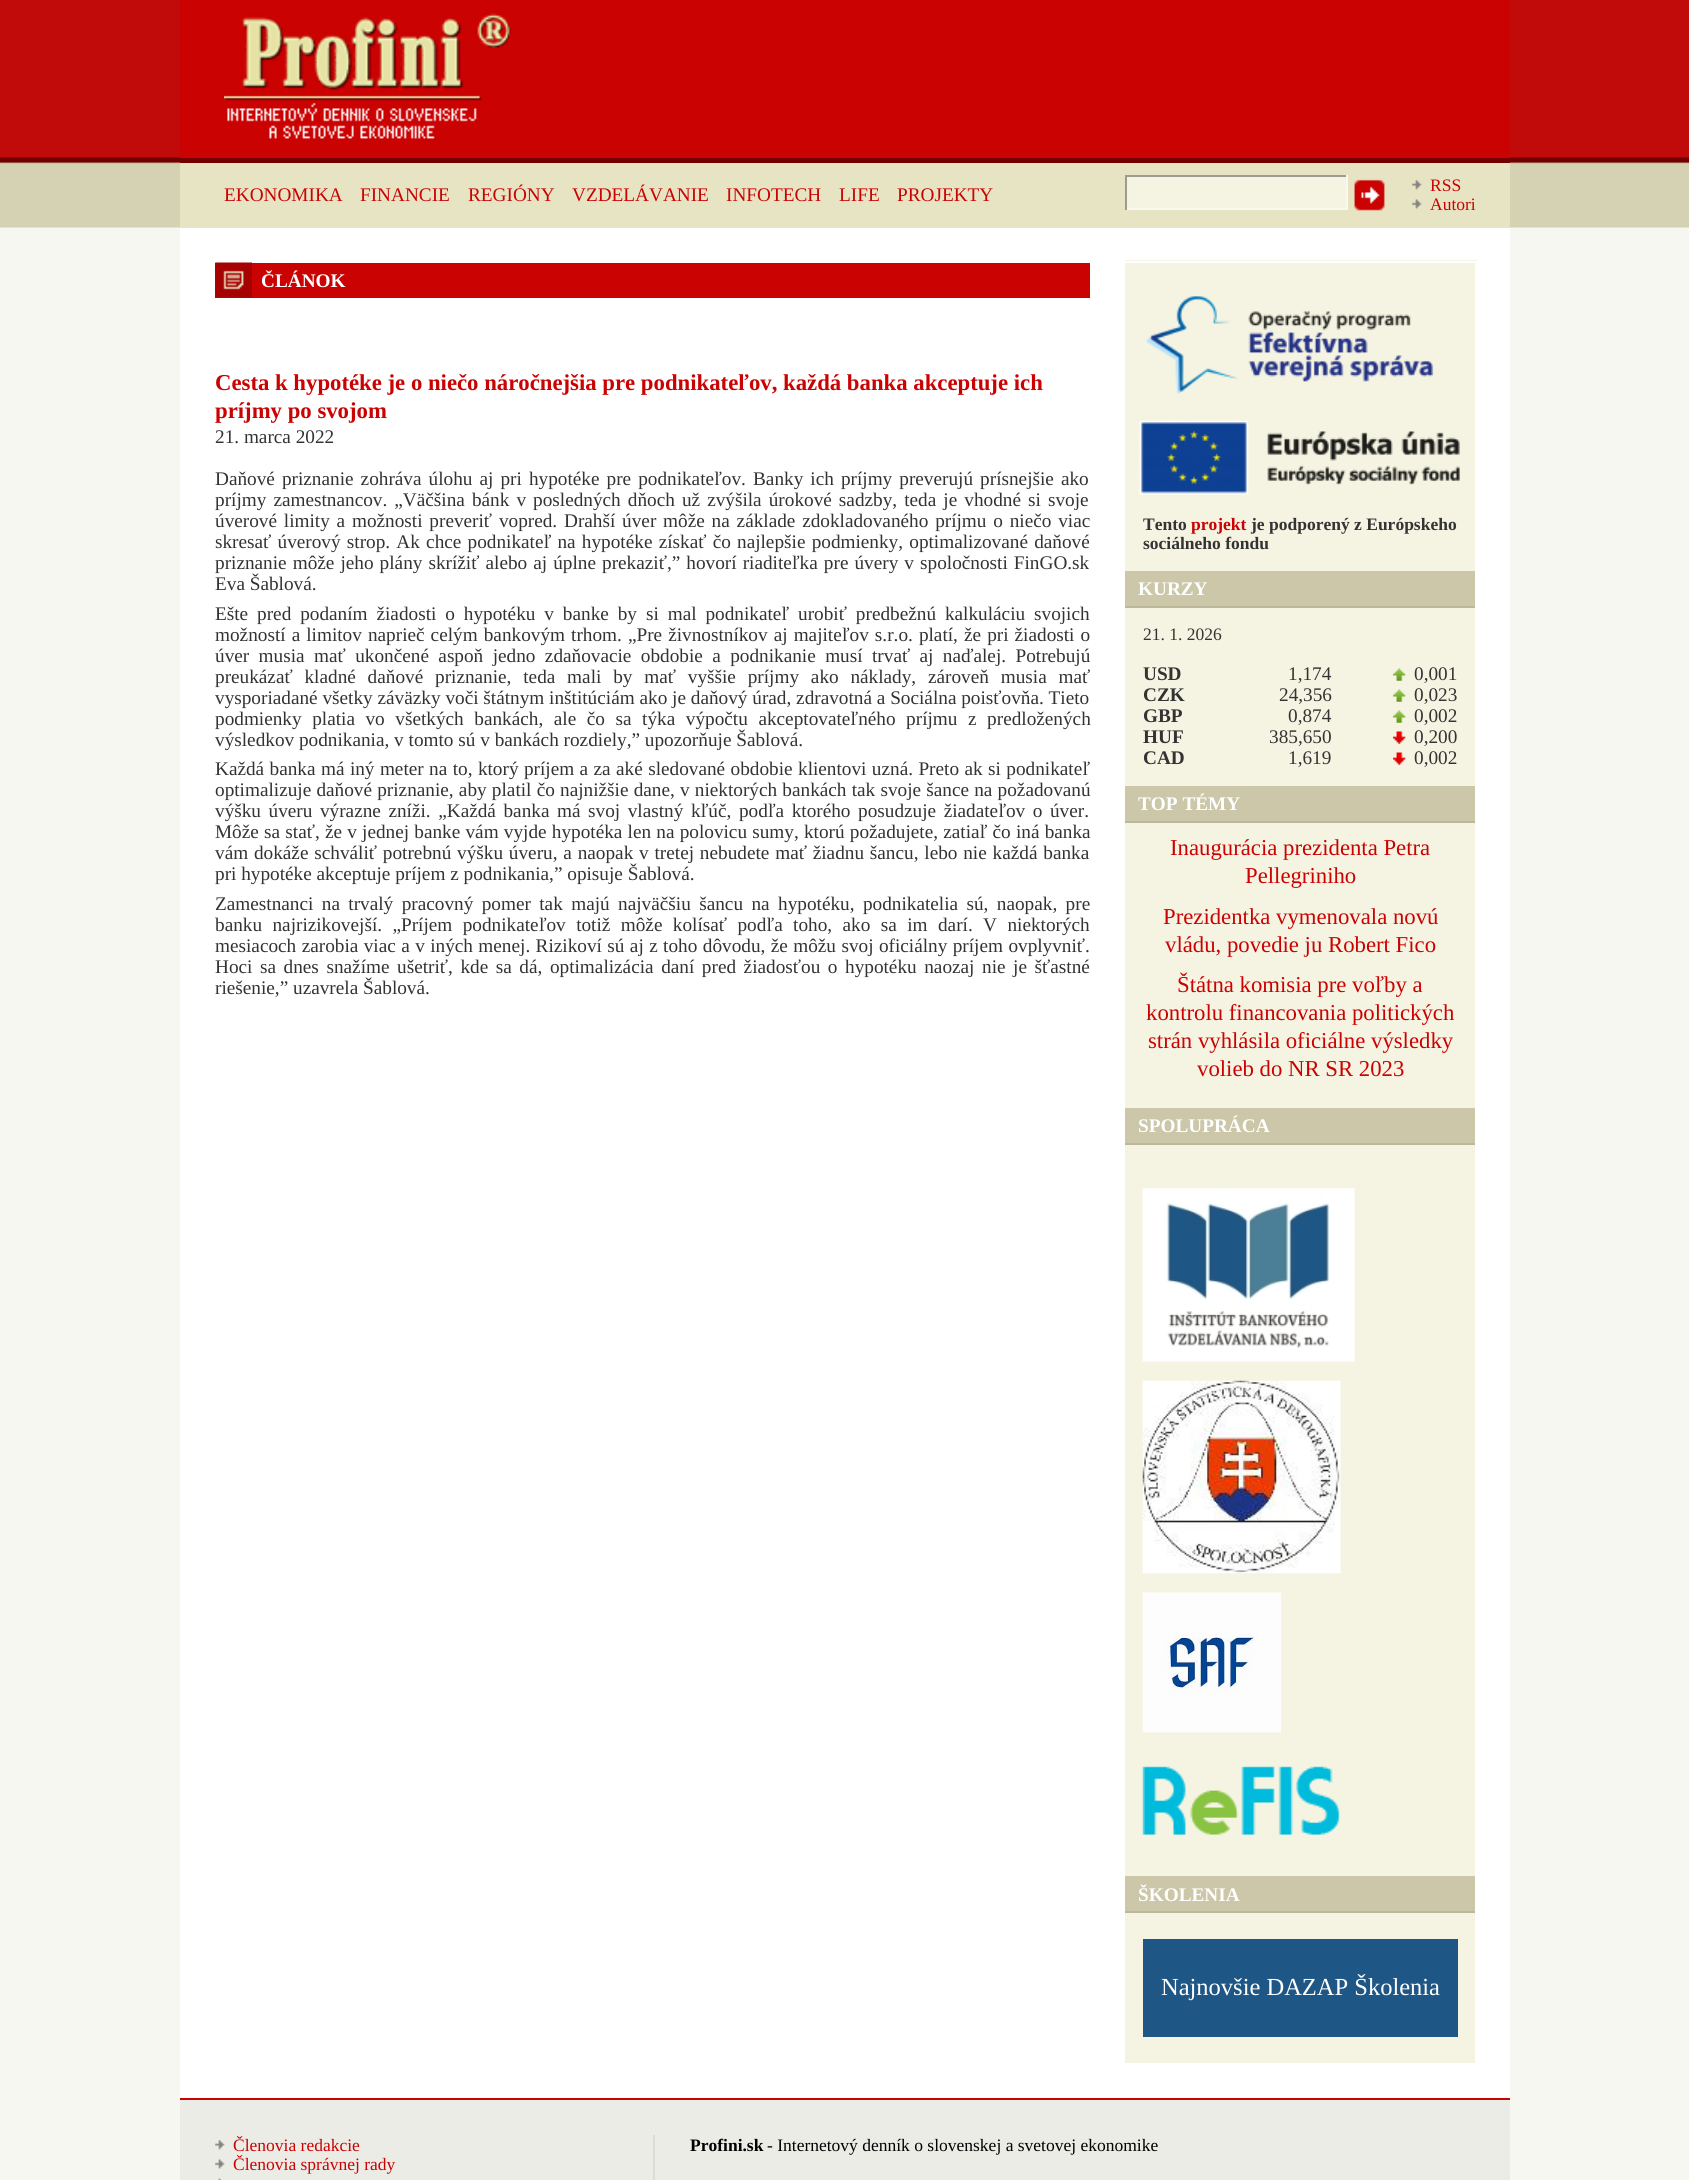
#include <cairo.h>
#include <math.h>
#include <stddef.h>

typedef struct { const char *family; double size; int italic, bold; unsigned color; } style_t;
static cairo_t *ctx;

static void ink(unsigned color) {
    cairo_set_source_rgb(ctx, (color >> 16) / 255.0, (color >> 8 & 255) / 255.0, (color & 255) / 255.0);
}

static void write(double x, double y, const char *s, const style_t *st) {
    cairo_select_font_face(ctx, st->family, st->italic ? CAIRO_FONT_SLANT_ITALIC : CAIRO_FONT_SLANT_NORMAL,
        st->bold ? CAIRO_FONT_WEIGHT_BOLD : CAIRO_FONT_WEIGHT_NORMAL);
    cairo_set_font_size(ctx, st->size);
    ink(st->color);
    cairo_move_to(ctx, x, y);
    cairo_show_text(ctx, s);
}

static void write_spaced(double x, double y, const char *s, double letter, double word) {
    cairo_move_to(ctx, x, y);
    while (*s) {
        char ch[5] = {0};
        int n = 0;
        do ch[n++] = *s++; while ((*s & 0xC0) == 0x80);
        cairo_show_text(ctx, ch);
        cairo_rel_move_to(ctx, letter + word * (*ch == ' '), 0);
    }
}

static void block(double x, double y, double w, double h, unsigned color) {
    ink(color);
    cairo_rectangle(ctx, x, y, w, h);
    cairo_fill(ctx);
}

static void paste(const char *path, double x, double y, double w, double h) {
    cairo_surface_t *image = cairo_image_surface_create_from_png(path);
    cairo_save(ctx);
    cairo_set_source_surface(ctx, image, x, y);
    cairo_rectangle(ctx, x, y, w, h);
    cairo_fill(ctx);
    cairo_restore(ctx);
    cairo_surface_destroy(image);
}

static const style_t s1 = {"Liberation Serif", 19.25, 0, 0, 0xca0202};
static const style_t s2 = {"Liberation Serif", 17.5, 0, 0, 0xca0202};
static const style_t s3 = {"Liberation Serif", 19.25, 0, 1, 0xffffff};
static const style_t s4 = {"Liberation Serif", 22.75, 0, 1, 0xca0202};
static const style_t s5 = {"Liberation Serif", 19.25, 0, 0, 0x333333};
static const style_t s6 = {"Liberation Serif", 17.5, 0, 1, 0x333333};
static const style_t s7 = {"Liberation Serif", 17.5, 0, 1, 0xca0202};
static const style_t s8 = {"Liberation Serif", 17.5, 0, 0, 0x333333};
static const style_t s9 = {"Liberation Serif", 19.25, 0, 1, 0x333333};
static const style_t s10 = {"Liberation Serif", 22.75, 0, 0, 0xca0202};
static const style_t s11 = {"Liberation Serif", 24.5, 0, 0, 0xffffff};
static const style_t s12 = {"Liberation Serif", 17.5, 0, 1, 0x000000};
static const style_t s13 = {"Liberation Serif", 17.5, 0, 0, 0x000000};

int main(void) {
    cairo_surface_t *surface = cairo_image_surface_create(CAIRO_FORMAT_RGB24, 1689, 2180);
    ctx = cairo_create(surface);
    cairo_font_options_t *options = cairo_font_options_create();
    cairo_font_options_set_hint_metrics(options, CAIRO_HINT_METRICS_OFF);
    cairo_font_options_set_hint_style(options, CAIRO_HINT_STYLE_NONE);
    cairo_set_font_options(ctx, options);
    cairo_set_miter_limit(ctx, 4);
    ink(0xf7f7f2);
    cairo_paint(ctx);
    paste("pic1.png", 0, 0, 1689, 228);
    block(180, 228, 1330, 1870, 0xffffff);
    block(180, 0, 1330, 158, 0xca0202);
    paste("pic2.png", 224, 13, 287, 126);
    block(180, 162, 1330, 1, 0x720000);
    block(180, 163, 1330, 65, 0xe7e4c3);
    write(224, 201, "EKONOMIKA", &s1);
    write(360, 201, "FINANCIE", &s1);
    write(468, 201, "REGIÓNY", &s1);
    write(572, 201, "VZDELÁVANIE", &s1);
    write(726, 201, "INFOTECH", &s1);
    write(839, 201, "LIFE", &s1);
    write(897, 201, "PROJEKTY", &s1);
    block(1127, 177, 219, 31, 0xf5f4e2);
    block(1125, 175, 223, 2, 0x9c9b90);
    block(1346, 175, 2, 35, 0xf9f9ee);
    block(1125, 208, 223, 2, 0xf9f9ee);
    block(1125, 175, 2, 35, 0x9c9b90);
    paste("pic3.png", 1354, 179, 31, 32);
    paste("pic4.png", 1412, 179, 10, 11);
    write(1430, 191, "RSS", &s2);
    paste("pic5.png", 1412, 199, 10, 10);
    write(1430, 210, "Autori", &s2);
    block(1125, 260, 352, 1803, 0xf5f4e2);
    cairo_rectangle(ctx, 215, 262, 1261, 1802);
    ink(0xffffff);
    cairo_stroke(ctx);
    block(215, 263, 875, 35, 0xca0202);
    paste("pic6.png", 215, 262, 37, 36);
    write(261, 287, "ČLÁNOK", &s3);
    write(215, 390, "Cesta k hypotéke je o niečo náročnejšia pre podnikateľov, každá banka akceptuje ich", &s4);
    write(215, 418, "príjmy po svojom", &s4);
    write(215, 443, "21. marca 2022", &s5);
    write_spaced(215, 485, "Daňové priznanie zohráva úlohu aj pri hypotéke pre podnikateľov. Banky ich príjmy preverujú prísnejšie ako", 0, 2.25);
    write_spaced(215, 506, "príjmy zamestnancov. „Väčšina bánk v posledných dňoch už zvýšila úrokové sadzby, teda je vhodné si svoje", 0, 2.25);
    write_spaced(215, 527, "úverové limity a možnosti preveriť vopred. Drahší úver môže na základe zdokladovaného príjmu o niečo viac", 0, 2);
    write_spaced(215, 548, "skresať úverový strop. Ak chce podnikateľ na hypotéke získať čo najlepšie podmienky, optimalizované daňové", 0, 1.4);
    write_spaced(215, 569, "priznanie môže jeho plány skrížiť alebo aj úplne prekaziť,” hovorí riaditeľka pre úvery v spoločnosti FinGO.sk", 0, 1.25);
    write(215, 590, "Eva Šablová.", &s5);
    write_spaced(215, 620, "Ešte pred podaním žiadosti o hypotéku v banke by si mal podnikateľ urobiť predbežnú kalkuláciu svojich", 0, 4.1);
    write_spaced(215, 641, "možností a limitov naprieč celým bankovým trhom. „Pre živnostníkov aj majiteľov s.r.o. platí, že pri žiadosti o", 0, 1.25);
    write_spaced(215, 662, "úver musia mať ukončené aspoň jedno zdaňovacie obdobie a podnikanie musí trvať aj naďalej. Potrebujú", 0, 4.6);
    write_spaced(215, 683, "preukázať kladné daňové priznanie, teda mali by mať vyššie príjmy ako náklady, zároveň musia mať", 0, 7);
    write(215, 704, "vysporiadané všetky záväzky voči štátnym inštitúciám ako je daňový úrad, zdravotná a Sociálna poisťovňa. Tieto", &s5);
    write_spaced(215, 725, "podmienky platia vo všetkých bankách, ale čo sa týka výpočtu akceptovateľného príjmu z predložených", 0, 5.75);
    write(215, 746, "výsledkov podnikania, v tomto sú v bankách rozdiely,” upozorňuje Šablová.", &s5);
    write_spaced(215, 775, "Každá banka má iný meter na to, ktorý príjem a za aké sledované obdobie klientovi uzná. Preto ak si podnikateľ", 0, 0.6);
    write_spaced(215, 796, "optimalizuje daňové priznanie, aby platil čo najnižšie dane, v niektorých bankách tak svoje šance na požadovanú", 0, 0.4);
    write_spaced(215, 817, "výšku úveru výrazne zníži. „Každá banka má svoj vlastný kľúč, podľa ktorého posudzuje žiadateľov o úver.", 0, 2.75);
    write_spaced(215, 838, "Môže sa stať, že v jednej banke vám vyjde hypotéka len na polovicu sumy, ktorú požadujete, zatiaľ čo iná banka", 0, 0.4);
    write_spaced(215, 859, "vám dokáže schváliť potrebnú výšku úveru, a naopak v tretej nebudete mať žiadnu šancu, lebo nie každá banka", 0, 1);
    write(215, 880, "pri hypotéke akceptuje príjem z podnikania,” opisuje Šablová.", &s5);
    write_spaced(215, 910, "Zamestnanci na trvalý pracovný pomer tak majú najväčšiu šancu na hypotéku, podnikatelia sú, naopak, pre", 0, 3.6);
    write_spaced(215, 931, "banku najrizikovejší. „Príjem podnikateľov totiž môže kolísať podľa toho, ako sa im darí. V niektorých", 0, 5.6);
    write_spaced(215, 952, "mesiacoch zarobia viac a v iných menej. Rizikoví sú aj z toho dôvodu, že môžu svoj oficiálny príjem ovplyvniť.", 0, 0.6);
    write_spaced(215, 973, "Hoci sa dnes snažíme ušetriť, kde sa dá, optimalizácia daní pred žiadosťou o hypotéku naozaj nie je šťastné", 0, 2.75);
    write(215, 994, "riešenie,” uzavrela Šablová.", &s5);
    paste("pic7.png", 1146, 296, 288, 98);
    paste("pic8.png", 1139, 420, 321, 75);
    write(1143, 530, "Tento", &s6);
    write(1191, 530, "projekt", &s7);
    write(1251, 530, "je podporený z Európskeho", &s6);
    write(1143, 549, "sociálneho fondu", &s6);
    block(1125, 571, 350, 35, 0xcbc7a8);
    block(1125, 606, 350, 2, 0xbbb79b);
    write(1138, 595, "KURZY", &s3);
    write(1143, 640, "21. 1. 2026", &s8);
    write(1143, 680, "USD", &s9);
    write(1288, 680, "1,174", &s5);
    paste("pic9.png", 1393, 668, 13, 13);
    write(1414, 680, "0,001", &s5);
    write(1143, 701, "CZK", &s9);
    write(1279, 701, "24,356", &s5);
    paste("pic9.png", 1393, 689, 13, 13);
    write(1414, 701, "0,023", &s5);
    write(1143, 722, "GBP", &s9);
    write(1288, 722, "0,874", &s5);
    paste("pic9.png", 1393, 710, 13, 13);
    write(1414, 722, "0,002", &s5);
    write(1143, 743, "HUF", &s9);
    write(1269, 743, "385,650", &s5);
    paste("pic10.png", 1393, 731, 13, 13);
    write(1414, 743, "0,200", &s5);
    write(1143, 764, "CAD", &s9);
    write(1288, 764, "1,619", &s5);
    paste("pic10.png", 1393, 752, 13, 13);
    write(1414, 764, "0,002", &s5);
    block(1125, 786, 350, 35, 0xcbc7a8);
    block(1125, 821, 350, 2, 0xbbb79b);
    write(1138, 810, "TOP TÉMY", &s3);
    write(1170, 855, "Inaugurácia prezidenta Petra", &s10);
    write(1245, 883, "Pellegriniho", &s10);
    write(1163, 924, "Prezidentka vymenovala novú", &s10);
    write(1165, 952, "vládu, povedie ju Robert Fico", &s10);
    write(1177, 992, "Štátna komisia pre voľby a", &s10);
    write(1146, 1020, "kontrolu financovania politických", &s10);
    write(1148, 1048, "strán vyhlásila oficiálne výsledky", &s10);
    write(1197, 1076, "volieb do NR SR 2023", &s10);
    block(1125, 1108, 350, 35, 0xcbc7a8);
    block(1125, 1143, 350, 2, 0xbbb79b);
    write(1138, 1132, "SPOLUPRÁCA", &s3);
    paste("pic11.png", 1142, 1188, 213, 174);
    paste("pic12.png", 1142, 1380, 199, 194);
    paste("pic13.png", 1142, 1592, 139, 141);
    paste("pic14.png", 1142, 1766, 198, 69);
    block(1125, 1876, 350, 35, 0xcbc7a8);
    block(1125, 1911, 350, 2, 0xbbb79b);
    write(1138, 1901, "ŠKOLENIA", &s3);
    block(1143, 1939, 315, 98, 0x1e5685);
    write(1161, 1995, "Najnovšie DAZAP Školenia", &s11);
    block(180, 2100, 1330, 80, 0xecece6);
    block(180, 2098, 1330, 2, 0xca0202);
    paste("pic15.png", 215, 2139, 10, 11);
    write(233, 2151, "Členovia redakcie", &s2);
    paste("pic16.png", 215, 2159, 10, 10);
    write(233, 2170, "Členovia správnej rady", &s2);
    paste("pic17.png", 218, 2178, 3, 2);
    block(653, 2135, 2, 45, 0xdcdcd7);
    write(690, 2151, "Profini.sk", &s12);
    write(767, 2151, "- Internetový denník o slovenskej a svetovej ekonomike", &s13);
    cairo_surface_write_to_png(surface, "screenshot.png");
    cairo_font_options_destroy(options);
    cairo_destroy(ctx);
    cairo_surface_destroy(surface);
    return 0;
}
